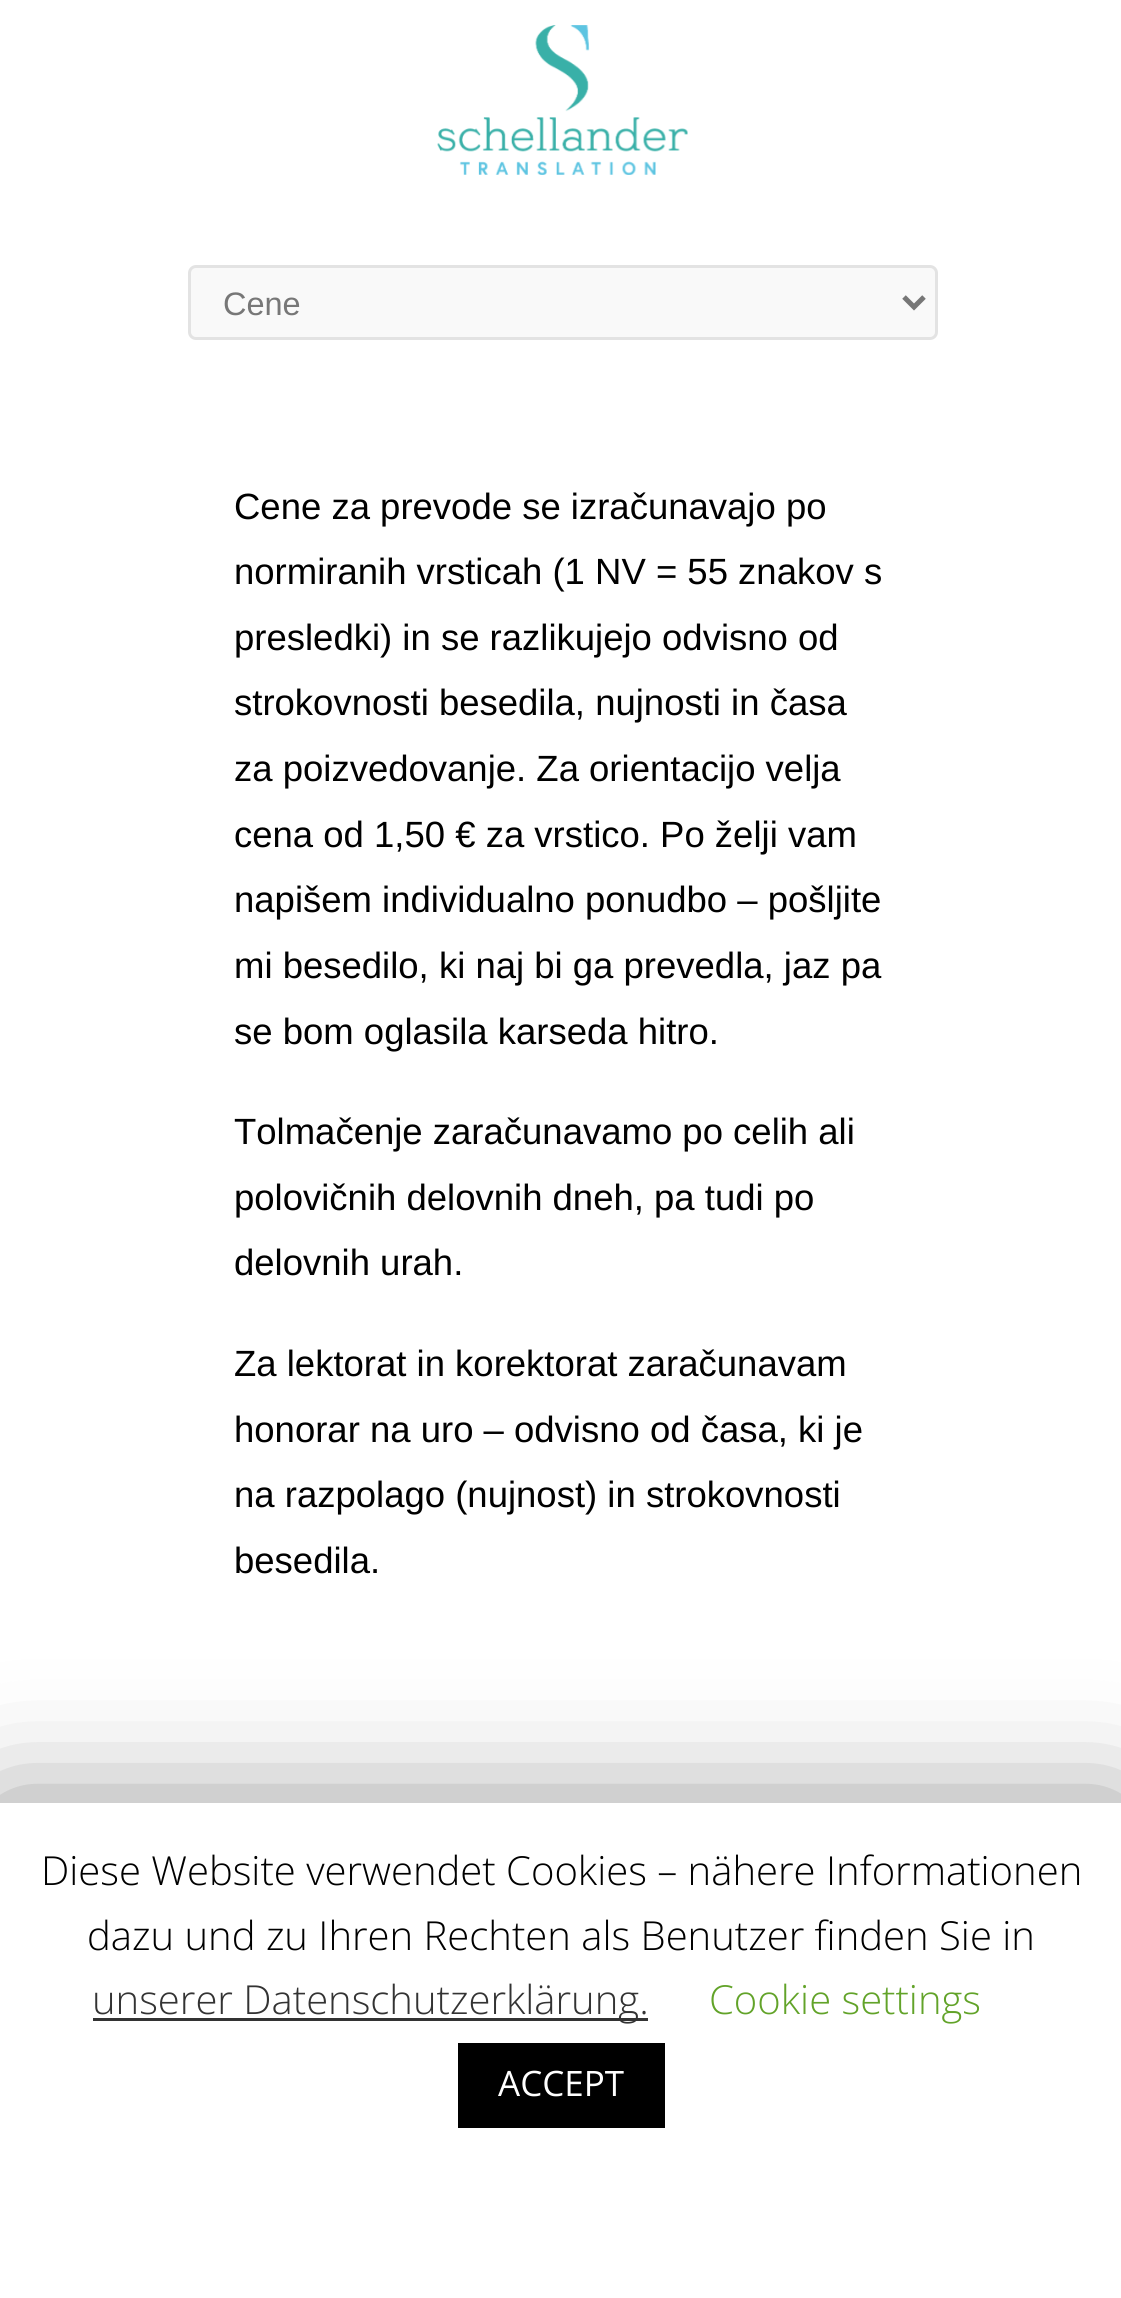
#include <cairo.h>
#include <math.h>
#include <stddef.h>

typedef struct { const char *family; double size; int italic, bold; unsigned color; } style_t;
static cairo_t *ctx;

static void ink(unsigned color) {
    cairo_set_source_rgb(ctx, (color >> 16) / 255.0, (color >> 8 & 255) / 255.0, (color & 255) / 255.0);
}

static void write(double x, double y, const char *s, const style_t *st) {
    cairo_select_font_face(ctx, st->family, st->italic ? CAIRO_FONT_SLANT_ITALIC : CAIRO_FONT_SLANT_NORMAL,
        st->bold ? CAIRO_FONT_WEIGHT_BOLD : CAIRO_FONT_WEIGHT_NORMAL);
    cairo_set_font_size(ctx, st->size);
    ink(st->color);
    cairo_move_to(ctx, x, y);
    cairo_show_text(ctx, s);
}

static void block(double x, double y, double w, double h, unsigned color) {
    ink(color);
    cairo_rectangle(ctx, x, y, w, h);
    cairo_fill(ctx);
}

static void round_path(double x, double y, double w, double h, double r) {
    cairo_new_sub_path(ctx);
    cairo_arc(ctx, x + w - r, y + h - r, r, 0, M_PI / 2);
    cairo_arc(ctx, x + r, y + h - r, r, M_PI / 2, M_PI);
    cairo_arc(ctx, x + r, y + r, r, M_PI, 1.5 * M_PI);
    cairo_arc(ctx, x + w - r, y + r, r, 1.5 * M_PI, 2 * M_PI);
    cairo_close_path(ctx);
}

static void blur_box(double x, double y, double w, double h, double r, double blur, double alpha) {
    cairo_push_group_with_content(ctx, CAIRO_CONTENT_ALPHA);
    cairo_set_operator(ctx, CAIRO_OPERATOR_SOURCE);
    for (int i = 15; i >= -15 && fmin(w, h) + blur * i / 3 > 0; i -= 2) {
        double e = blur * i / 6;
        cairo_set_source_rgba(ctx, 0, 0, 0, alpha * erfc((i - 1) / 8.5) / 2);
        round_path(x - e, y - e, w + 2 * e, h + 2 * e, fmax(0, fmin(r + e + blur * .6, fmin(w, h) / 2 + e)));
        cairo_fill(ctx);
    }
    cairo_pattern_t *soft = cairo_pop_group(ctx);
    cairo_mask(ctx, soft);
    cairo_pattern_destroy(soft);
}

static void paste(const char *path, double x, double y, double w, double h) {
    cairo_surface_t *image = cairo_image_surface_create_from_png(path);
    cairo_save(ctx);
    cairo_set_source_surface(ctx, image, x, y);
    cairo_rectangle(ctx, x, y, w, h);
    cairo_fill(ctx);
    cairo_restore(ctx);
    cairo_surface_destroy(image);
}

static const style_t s1 = {"Liberation Sans", 32.5, 0, 0, 0x777777};
static const style_t s2 = {"Liberation Sans", 36.5, 0, 0, 0x000000};
static const style_t s3 = {"Open Sans Light", 40, 0, 0, 0x000000};
static const style_t s4 = {"Open Sans Light", 40, 0, 0, 0x333333};
static const style_t s5 = {"Open Sans Light", 40, 0, 0, 0x62a329};
static const style_t s6 = {"Open Sans", 35, 0, 0, 0xffffff};

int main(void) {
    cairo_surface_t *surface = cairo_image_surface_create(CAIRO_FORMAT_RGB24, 1121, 2298);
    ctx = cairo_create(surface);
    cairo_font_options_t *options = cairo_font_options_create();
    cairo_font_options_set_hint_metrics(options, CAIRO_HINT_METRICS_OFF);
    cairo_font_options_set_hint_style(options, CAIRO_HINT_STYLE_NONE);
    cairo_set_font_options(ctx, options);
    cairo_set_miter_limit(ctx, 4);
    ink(0xffffff);
    cairo_paint(ctx);
    paste("pic1.png", 437, 25, 251, 150);
    ink(0xf9f9f9);
    round_path(189.5, 266.5, 747, 72, 6.5);
    cairo_fill_preserve(ctx);
    ink(0xe3e3e3);
    cairo_set_line_width(ctx, 3);
    cairo_stroke(ctx);
    cairo_new_path(ctx);
    cairo_move_to(ctx, 904, 297);
    cairo_line_to(ctx, 914, 307);
    cairo_line_to(ctx, 924, 297);
    ink(0x777777);
    cairo_set_line_width(ctx, 5);
    cairo_stroke(ctx);
    write(223, 315, "Cene", &s1);
    write(234, 519, "Cene za prevode se izračunavajo po", &s2);
    write(234, 584, "normiranih vrsticah (1 NV = 55 znakov s", &s2);
    write(234, 650, "presledki) in se razlikujejo odvisno od", &s2);
    write(234, 715, "strokovnosti besedila, nujnosti in časa", &s2);
    write(234, 781, "za poizvedovanje. Za orientacijo velja", &s2);
    write(234, 847, "cena od 1,50 € za vrstico. Po želji vam", &s2);
    write(234, 912, "napišem individualno ponudbo – pošljite", &s2);
    write(234, 978, "mi besedilo, ki naj bi ga prevedla, jaz pa", &s2);
    write(234, 1044, "se bom oglasila karseda hitro.", &s2);
    write(234, 1144, "Tolmačenje zaračunavamo po celih ali", &s2);
    write(234, 1210, "polovičnih delovnih dneh, pa tudi po", &s2);
    write(234, 1275, "delovnih urah.", &s2);
    write(234, 1376, "Za lektorat in korektorat zaračunavam", &s2);
    write(234, 1442, "honorar na uro – odvisno od časa, ki je", &s2);
    write(234, 1507, "na razpolago (nujnost) in strokovnosti", &s2);
    write(234, 1573, "besedila.", &s2);
    ink(0x000000);
    blur_box(0, 1815, 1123, 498, 0, 62.5, 0.5);
    block(0, 1803, 1121, 495, 0xffffff);
    write(41, 1885, "Diese Website verwendet Cookies – nähere Informationen", &s3);
    write(87, 1950, "dazu und zu Ihren Rechten als Benutzer finden Sie in", &s3);
    block(93, 2018, 555, 3, 0x333333);
    write(92, 2014, "unserer Datenschutzerklärung.", &s4);
    write(709, 2014, "Cookie settings", &s5);
    block(458, 2043, 207, 85, 0x000000);
    write(498, 2096, "ACCEPT", &s6);
    cairo_surface_write_to_png(surface, "screenshot.png");
    cairo_font_options_destroy(options);
    cairo_destroy(ctx);
    cairo_surface_destroy(surface);
    return 0;
}
